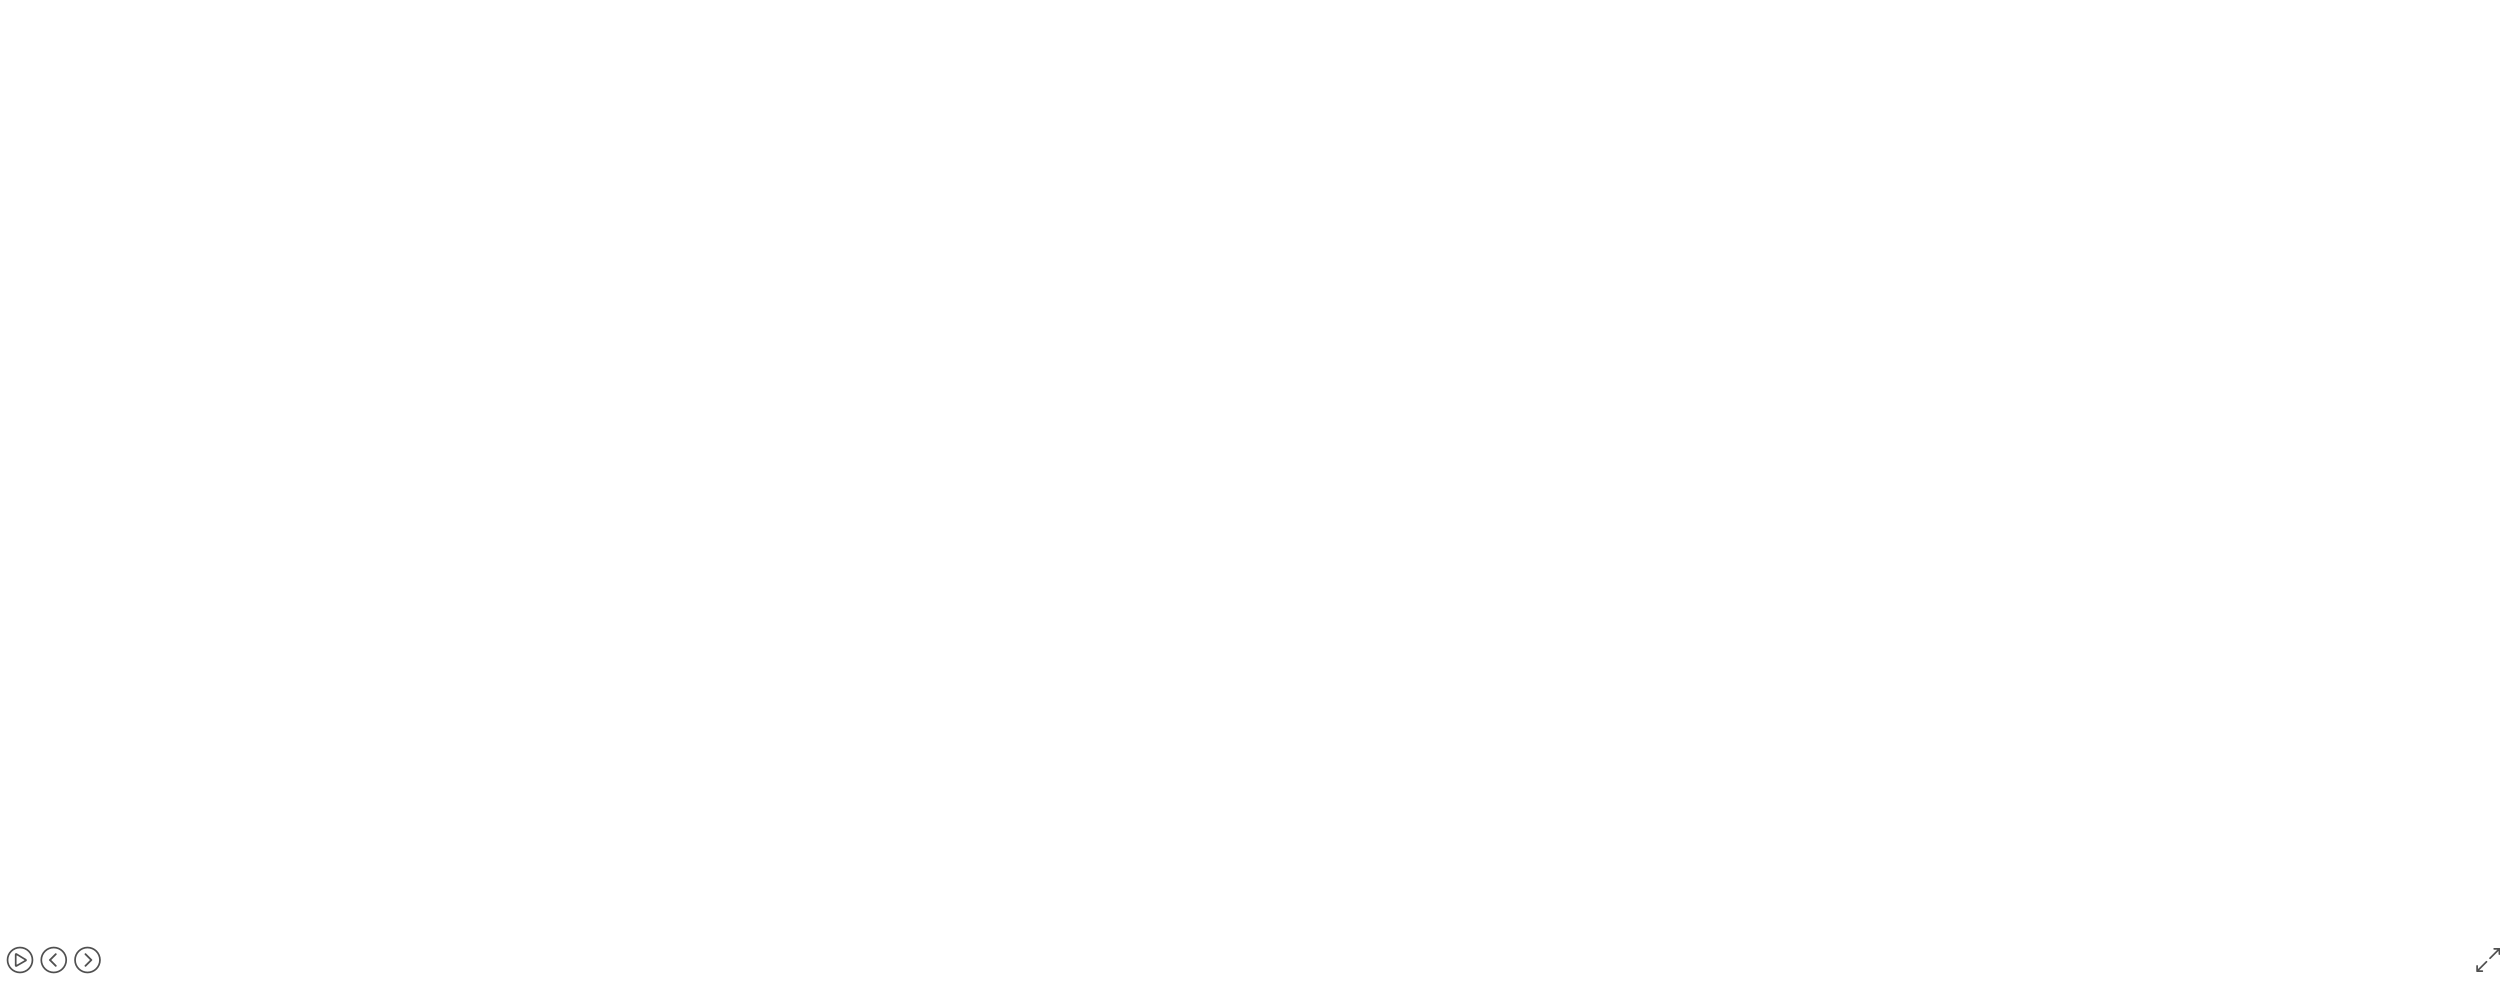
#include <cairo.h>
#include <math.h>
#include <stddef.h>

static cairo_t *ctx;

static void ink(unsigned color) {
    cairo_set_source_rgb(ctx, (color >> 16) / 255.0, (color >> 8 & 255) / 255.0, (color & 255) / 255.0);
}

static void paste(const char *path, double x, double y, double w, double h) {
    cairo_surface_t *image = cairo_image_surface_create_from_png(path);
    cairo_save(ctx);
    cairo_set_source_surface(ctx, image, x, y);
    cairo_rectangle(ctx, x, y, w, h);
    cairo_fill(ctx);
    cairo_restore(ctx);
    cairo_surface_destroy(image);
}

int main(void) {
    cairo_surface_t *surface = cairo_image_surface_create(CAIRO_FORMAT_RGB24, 2509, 983);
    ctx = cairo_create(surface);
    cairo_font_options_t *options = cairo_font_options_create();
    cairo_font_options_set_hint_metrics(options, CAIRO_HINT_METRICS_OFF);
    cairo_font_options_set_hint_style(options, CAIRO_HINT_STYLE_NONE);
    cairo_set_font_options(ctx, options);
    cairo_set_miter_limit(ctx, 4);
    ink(0xffffff);
    cairo_paint(ctx);
    paste("pic1.png", 6, 946, 28, 28);
    paste("pic2.png", 40, 946, 28, 28);
    paste("pic3.png", 74, 946, 27, 28);
    paste("pic4.png", 2476, 948, 24, 24);
    cairo_surface_write_to_png(surface, "screenshot.png");
    cairo_font_options_destroy(options);
    cairo_destroy(ctx);
    cairo_surface_destroy(surface);
    return 0;
}
